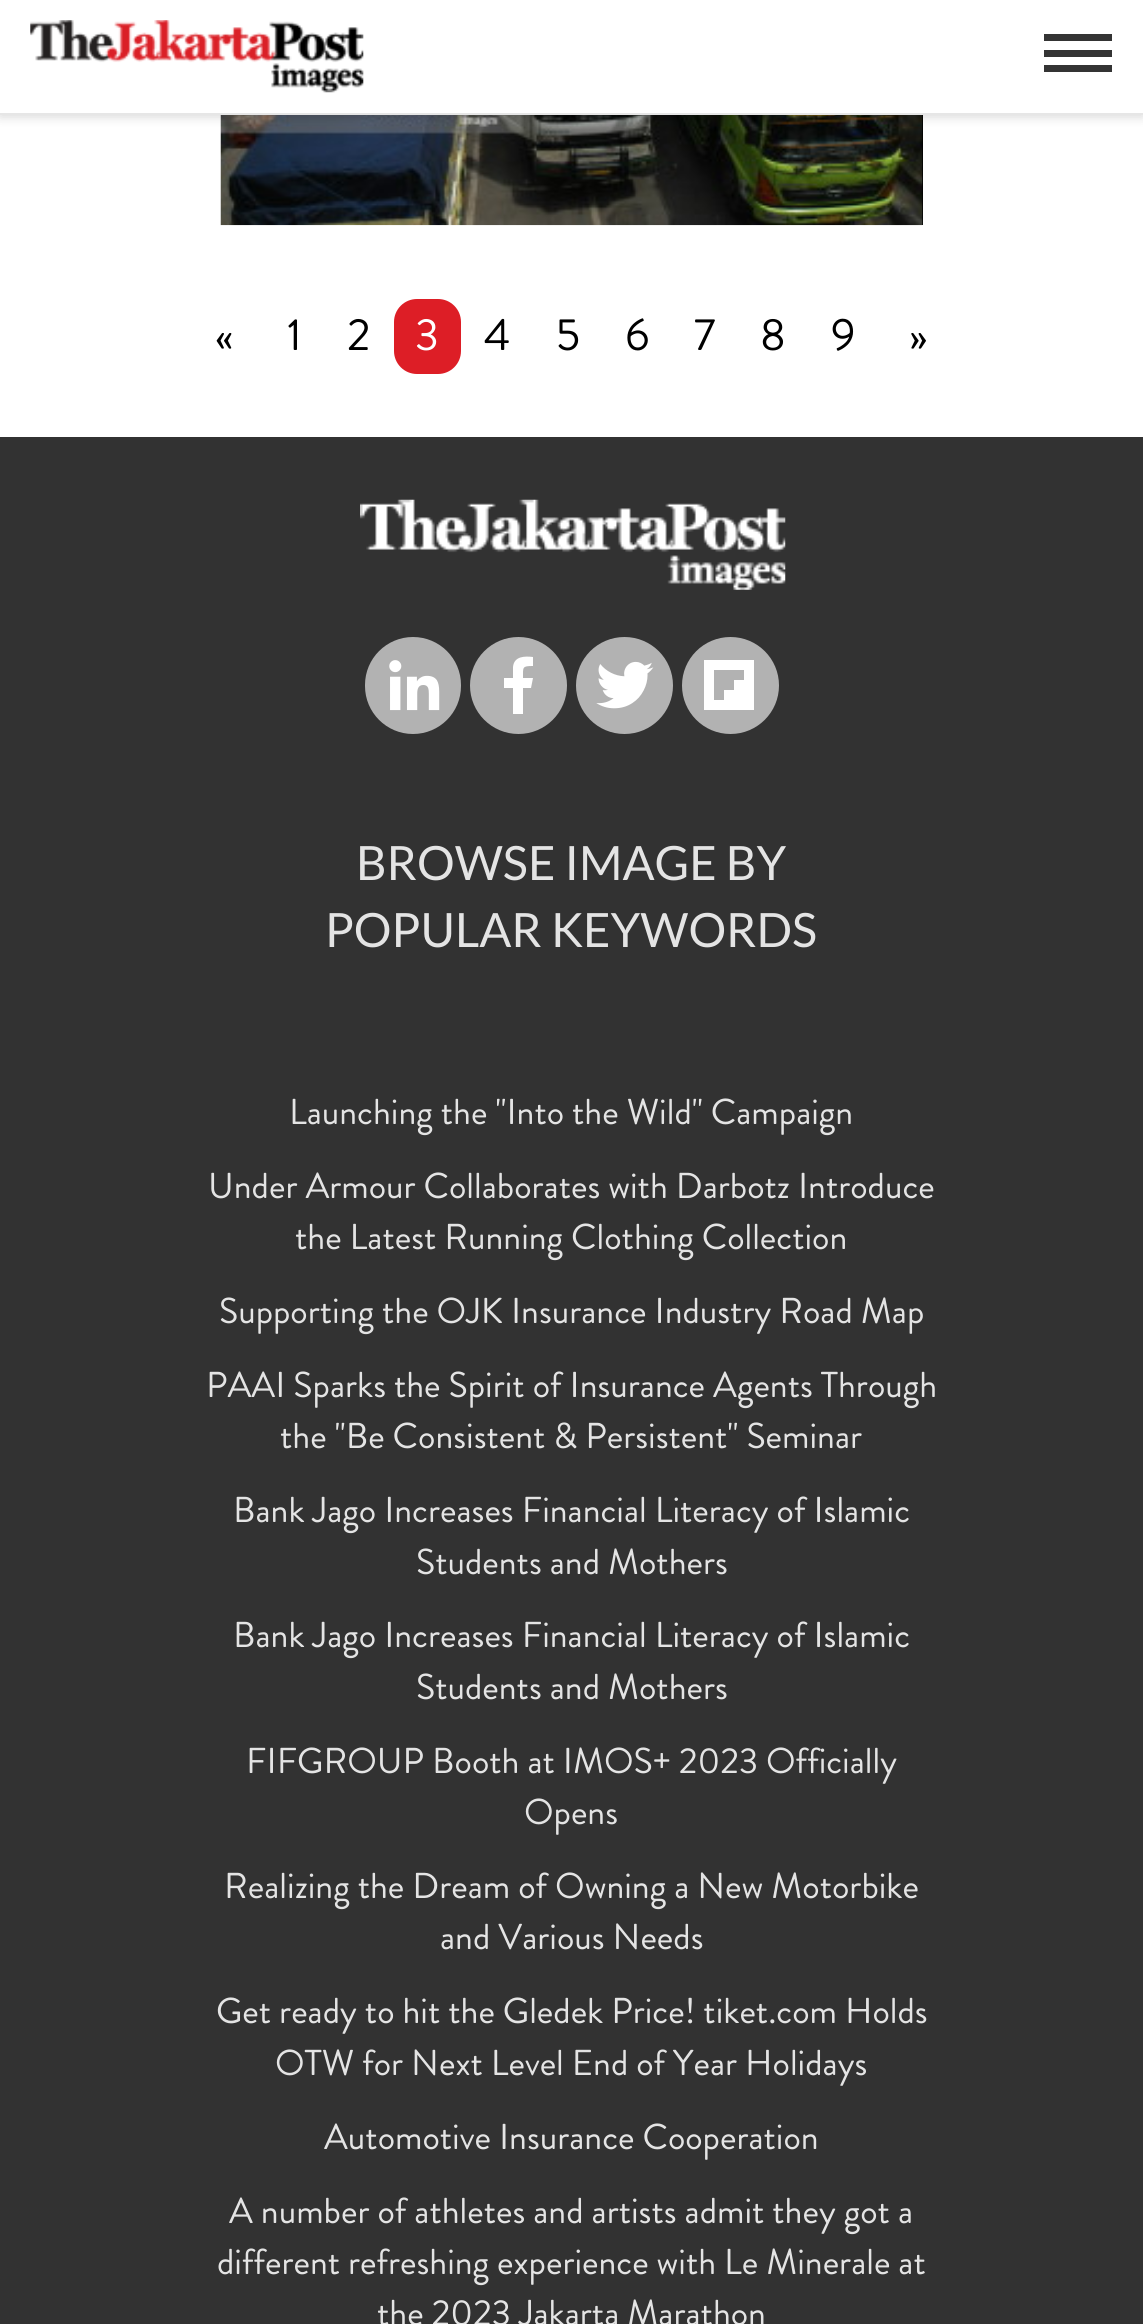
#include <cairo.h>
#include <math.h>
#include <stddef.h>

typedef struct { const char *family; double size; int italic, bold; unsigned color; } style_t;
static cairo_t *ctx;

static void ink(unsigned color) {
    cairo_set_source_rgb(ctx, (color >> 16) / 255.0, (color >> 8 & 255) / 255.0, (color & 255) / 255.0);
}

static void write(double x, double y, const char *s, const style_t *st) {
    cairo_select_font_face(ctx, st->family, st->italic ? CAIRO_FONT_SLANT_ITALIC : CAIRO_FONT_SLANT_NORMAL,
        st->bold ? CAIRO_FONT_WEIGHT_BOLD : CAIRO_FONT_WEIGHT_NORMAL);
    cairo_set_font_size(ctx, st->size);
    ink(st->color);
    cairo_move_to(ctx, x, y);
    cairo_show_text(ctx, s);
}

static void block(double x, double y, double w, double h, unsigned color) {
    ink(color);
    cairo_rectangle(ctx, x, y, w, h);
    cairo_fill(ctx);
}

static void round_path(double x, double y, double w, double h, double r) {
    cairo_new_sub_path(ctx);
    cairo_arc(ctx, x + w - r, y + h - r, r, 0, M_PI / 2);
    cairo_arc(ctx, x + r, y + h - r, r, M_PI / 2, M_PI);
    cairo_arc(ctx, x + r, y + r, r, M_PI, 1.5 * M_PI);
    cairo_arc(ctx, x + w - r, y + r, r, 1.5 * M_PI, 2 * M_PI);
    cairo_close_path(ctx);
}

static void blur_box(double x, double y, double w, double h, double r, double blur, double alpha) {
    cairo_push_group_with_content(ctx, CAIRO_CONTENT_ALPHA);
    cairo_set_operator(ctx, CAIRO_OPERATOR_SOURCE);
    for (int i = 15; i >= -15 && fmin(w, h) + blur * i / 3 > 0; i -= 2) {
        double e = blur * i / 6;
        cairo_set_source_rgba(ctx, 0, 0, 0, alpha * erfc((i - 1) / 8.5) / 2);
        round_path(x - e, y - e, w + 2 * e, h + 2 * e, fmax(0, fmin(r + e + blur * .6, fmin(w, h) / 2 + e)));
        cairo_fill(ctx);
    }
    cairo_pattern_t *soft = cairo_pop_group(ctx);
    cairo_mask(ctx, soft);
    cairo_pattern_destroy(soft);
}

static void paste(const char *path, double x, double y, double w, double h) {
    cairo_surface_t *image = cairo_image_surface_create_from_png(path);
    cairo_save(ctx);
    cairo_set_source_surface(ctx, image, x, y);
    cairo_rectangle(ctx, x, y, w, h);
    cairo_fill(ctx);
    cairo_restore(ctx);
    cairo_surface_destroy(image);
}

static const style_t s1 = {"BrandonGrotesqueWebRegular", 45, 0, 0, 0x000000};
static const style_t s2 = {"BrandonGrotesqueWebRegular", 45, 0, 0, 0xffffff};
static const style_t s3 = {"Lato", 47.25, 0, 0, 0xe4e4e4};
static const style_t s4 = {"BrandonGrotesqueWebRegular", 36, 0, 0, 0xe4e4e4};

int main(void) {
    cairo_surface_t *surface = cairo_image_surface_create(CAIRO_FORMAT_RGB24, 1143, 2324);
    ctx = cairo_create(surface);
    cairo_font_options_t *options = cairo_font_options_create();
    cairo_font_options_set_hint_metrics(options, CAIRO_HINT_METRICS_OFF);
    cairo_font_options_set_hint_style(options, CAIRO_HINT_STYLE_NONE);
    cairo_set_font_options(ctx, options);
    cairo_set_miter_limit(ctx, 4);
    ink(0xffffff);
    cairo_paint(ctx);
    block(922, 115, 1, 110, 0x000000);
    paste("pic2.png", 220, 115, 703, 111);
    ink(0x000000);
    blur_box(0, 2, 1143, 115, 0, 5.5, 0.15);
    block(0, 0, 1143, 113, 0xffffff);
    block(0, 113, 1143, 2, 0xe6e6e6);
    paste("pic1.png", 30, 20, 334, 73);
    block(1044, 34, 68, 7, 0x343434);
    block(1044, 50, 68, 7, 0x343434);
    block(1044, 65, 68, 7, 0x343434);
    write(215, 350, "«", &s1);
    write(287, 350, "1", &s1);
    write(347, 350, "2", &s1);
    ink(0xdd1e26);
    round_path(394, 299, 67, 75, 23);
    cairo_fill(ctx);
    write(415, 350, "3", &s2);
    write(484, 350, "4", &s1);
    write(556, 350, "5", &s1);
    write(625, 350, "6", &s1);
    write(694, 350, "7", &s1);
    write(760, 350, "8", &s1);
    write(831, 350, "9", &s1);
    write(909, 350, "»", &s1);
    block(0, 437, 1143, 1887, 0x323232);
    paste("pic3.png", 360, 499, 426, 91);
    ink(0xb2b2b2);
    round_path(365, 637, 96, 97, 48);
    cairo_fill(ctx);
    paste("pic4.png", 389, 660, 51, 51);
    cairo_arc(ctx, 518.5, 685.5, 48.5, 0, 2 * M_PI);
    cairo_fill(ctx);
    ink(0xffffff);
    cairo_new_path(ctx);
    cairo_move_to(ctx, 513, 714);
    cairo_line_to(ctx, 513, 688);
    cairo_line_to(ctx, 504, 688);
    cairo_line_to(ctx, 504, 678);
    cairo_line_to(ctx, 513, 678);
    cairo_line_to(ctx, 513, 667);
    cairo_curve_to(ctx, 514, 656, 525, 656, 533, 657);
    cairo_line_to(ctx, 533, 666);
    cairo_curve_to(ctx, 522, 666, 523, 667, 523, 678);
    cairo_line_to(ctx, 533, 678);
    cairo_line_to(ctx, 531, 688);
    cairo_line_to(ctx, 523, 688);
    cairo_line_to(ctx, 523, 714);
    cairo_close_path(ctx);
    cairo_fill(ctx);
    ink(0xb2b2b2);
    cairo_arc(ctx, 624.5, 685.5, 48.5, 0, 2 * M_PI);
    cairo_fill(ctx);
    paste("pic5.png", 596, 661, 58, 48);
    cairo_arc(ctx, 730.5, 685.5, 48.5, 0, 2 * M_PI);
    cairo_fill(ctx);
    ink(0xffffff);
    cairo_new_path(ctx);
    cairo_move_to(ctx, 704, 660);
    cairo_line_to(ctx, 704, 710);
    cairo_line_to(ctx, 754, 710);
    cairo_line_to(ctx, 754, 660);
    cairo_close_path(ctx);
    cairo_move_to(ctx, 744, 680);
    cairo_line_to(ctx, 734, 680);
    cairo_line_to(ctx, 734, 690);
    cairo_line_to(ctx, 724, 690);
    cairo_line_to(ctx, 724, 700);
    cairo_line_to(ctx, 714, 700);
    cairo_line_to(ctx, 714, 670);
    cairo_line_to(ctx, 744, 670);
    cairo_close_path(ctx);
    cairo_fill(ctx);
    write(356, 880, "BROWSE IMAGE BY", &s3);
    write(325, 947, "POPULAR KEYWORDS", &s3);
    write(289, 1124, "Launching the \"Into the Wild\" Campaign", &s4);
    write(208, 1198, "Under Armour Collaborates with Darbotz Introduce", &s4);
    write(295, 1249, "the Latest Running Clothing Collection", &s4);
    write(219, 1323, "Supporting the OJK Insurance Industry Road Map", &s4);
    write(206, 1397, "PAAI Sparks the Spirit of Insurance Agents Through", &s4);
    write(280, 1448, "the \"Be Consistent & Persistent\" Seminar", &s4);
    write(233, 1522, "Bank Jago Increases Financial Literacy of Islamic", &s4);
    write(416, 1574, "Students and Mothers", &s4);
    write(233, 1647, "Bank Jago Increases Financial Literacy of Islamic", &s4);
    write(416, 1699, "Students and Mothers", &s4);
    write(246, 1773, "FIFGROUP Booth at IMOS+ 2023 Officially", &s4);
    write(524, 1824, "Opens", &s4);
    write(224, 1898, "Realizing the Dream of Owning a New Motorbike", &s4);
    write(440, 1949, "and Various Needs", &s4);
    write(216, 2023, "Get ready to hit the Gledek Price! tiket.com Holds", &s4);
    write(275, 2075, "OTW for Next Level End of Year Holidays", &s4);
    write(324, 2149, "Automotive Insurance Cooperation", &s4);
    write(229, 2223, "A number of athletes and artists admit they got a", &s4);
    write(217, 2274, "different refreshing experience with Le Minerale at", &s4);
    write(377, 2325, "the 2023 Jakarta Marathon", &s4);
    cairo_surface_write_to_png(surface, "screenshot.png");
    cairo_font_options_destroy(options);
    cairo_destroy(ctx);
    cairo_surface_destroy(surface);
    return 0;
}
